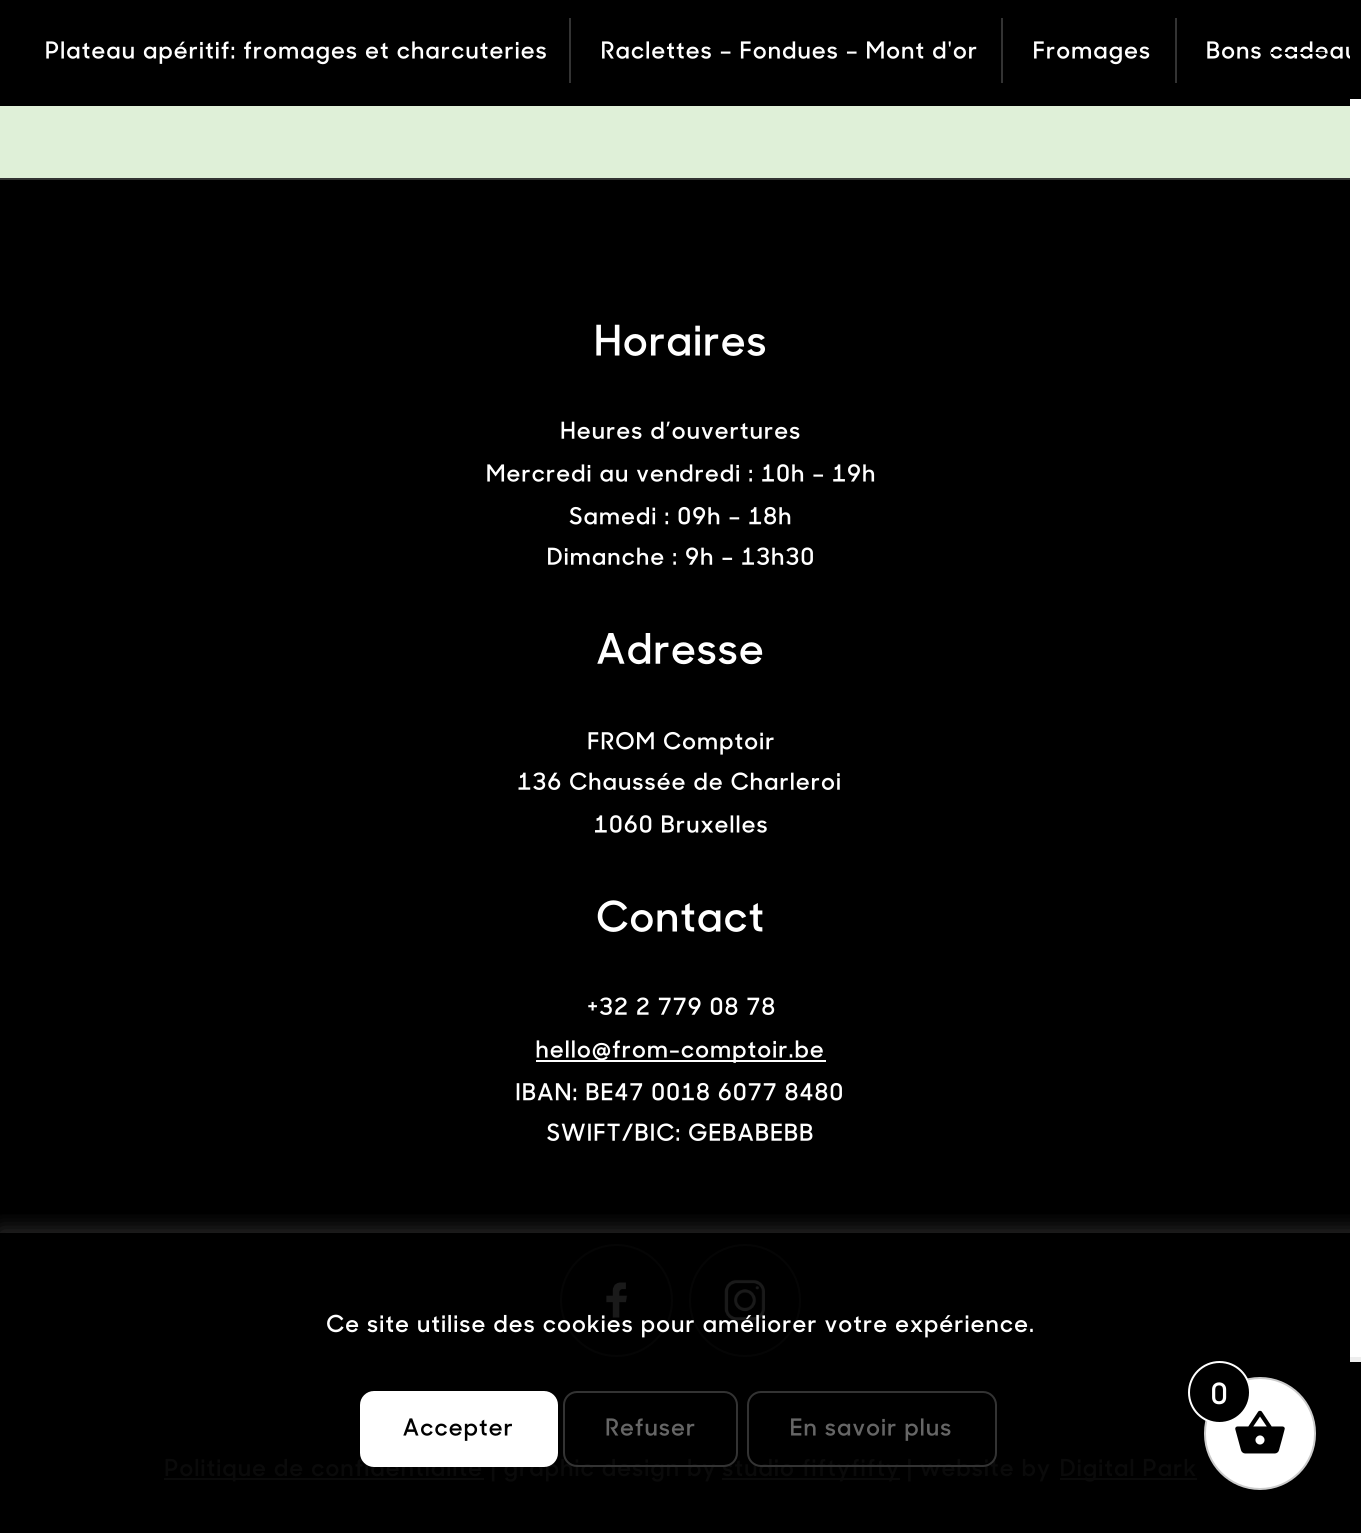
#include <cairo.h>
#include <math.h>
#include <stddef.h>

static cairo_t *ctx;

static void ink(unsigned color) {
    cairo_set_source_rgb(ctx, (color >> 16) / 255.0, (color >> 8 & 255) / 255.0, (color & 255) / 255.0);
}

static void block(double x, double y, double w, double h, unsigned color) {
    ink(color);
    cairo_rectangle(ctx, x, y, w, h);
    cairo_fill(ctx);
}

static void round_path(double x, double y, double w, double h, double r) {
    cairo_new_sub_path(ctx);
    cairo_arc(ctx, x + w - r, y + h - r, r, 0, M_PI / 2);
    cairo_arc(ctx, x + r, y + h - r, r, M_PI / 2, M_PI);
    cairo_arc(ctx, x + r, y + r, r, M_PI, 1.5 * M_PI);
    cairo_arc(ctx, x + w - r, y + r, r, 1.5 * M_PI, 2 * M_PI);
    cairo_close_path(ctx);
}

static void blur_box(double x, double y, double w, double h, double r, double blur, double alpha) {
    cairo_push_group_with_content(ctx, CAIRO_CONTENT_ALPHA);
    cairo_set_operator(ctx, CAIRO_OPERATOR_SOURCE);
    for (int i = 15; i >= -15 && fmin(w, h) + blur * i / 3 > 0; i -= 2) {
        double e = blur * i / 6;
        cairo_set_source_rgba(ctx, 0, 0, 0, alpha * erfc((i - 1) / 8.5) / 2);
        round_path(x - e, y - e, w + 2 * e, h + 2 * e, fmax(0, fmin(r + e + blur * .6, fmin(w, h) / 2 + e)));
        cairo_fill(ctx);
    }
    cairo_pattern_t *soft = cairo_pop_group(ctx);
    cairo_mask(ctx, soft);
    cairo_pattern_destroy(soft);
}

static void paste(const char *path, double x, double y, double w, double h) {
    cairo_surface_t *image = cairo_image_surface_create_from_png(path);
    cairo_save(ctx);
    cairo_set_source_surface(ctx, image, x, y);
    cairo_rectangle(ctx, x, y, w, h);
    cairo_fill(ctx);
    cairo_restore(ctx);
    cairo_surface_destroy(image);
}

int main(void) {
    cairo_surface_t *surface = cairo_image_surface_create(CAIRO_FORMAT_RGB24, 1361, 1533);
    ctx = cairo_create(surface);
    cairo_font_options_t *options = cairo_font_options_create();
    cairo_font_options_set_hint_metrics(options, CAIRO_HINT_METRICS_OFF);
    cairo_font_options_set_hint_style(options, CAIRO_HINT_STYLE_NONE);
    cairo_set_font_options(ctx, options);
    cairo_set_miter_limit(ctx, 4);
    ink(0x000000);
    cairo_paint(ctx);
    block(569, 18, 2, 65, 0x333333);
    paste("pic1.png", 46, 41, 500, 24);
    block(1001, 18, 2, 65, 0x333333);
    paste("pic2.png", 602, 41, 375, 18);
    block(1175, 18, 2, 65, 0x333333);
    paste("pic3.png", 1034, 41, 116, 24);
    paste("pic4.png", 1207, 41, 143, 18);
    block(1271, 52, 54, 2, 0x000000);
    block(0, 106, 1350, 72, 0xdff0d8);
    block(0, 178, 1350, 2, 0x333333);
    paste("pic5.png", 596, 324, 170, 32);
    paste("pic6.png", 561, 421, 239, 18);
    paste("pic7.png", 487, 464, 388, 18);
    paste("pic8.png", 569, 506, 222, 19);
    paste("pic9.png", 548, 547, 265, 18);
    paste("pic10.png", 597, 633, 166, 32);
    paste("pic11.png", 588, 731, 186, 24);
    paste("pic12.png", 518, 772, 322, 18);
    paste("pic13.png", 595, 815, 172, 18);
    paste("pic14.png", 597, 900, 166, 32);
    paste("pic15.png", 588, 997, 187, 18);
    block(536, 1060, 290, 2, 0xffffff);
    paste("pic16.png", 536, 1040, 287, 23);
    paste("pic17.png", 516, 1082, 326, 19);
    paste("pic18.png", 547, 1123, 266, 18);
    paste("pic19.png", 606, 1282, 22, 36);
    cairo_arc(ctx, 616.5, 1300.5, 55.5, 0, 2 * M_PI);
    ink(0x050505);
    cairo_stroke(ctx);
    paste("pic20.png", 724, 1279, 41, 42);
    round_path(690, 1245, 110, 111, 55);
    cairo_stroke(ctx);
    block(164, 1478, 320, 2, 0x0a0a0a);
    paste("pic21.png", 165, 1458, 317, 24);
    paste("pic22.png", 491, 1458, 224, 24);
    block(722, 1478, 178, 2, 0x0a0a0a);
    paste("pic23.png", 722, 1458, 177, 24);
    paste("pic24.png", 908, 1458, 142, 24);
    block(1060, 1478, 137, 2, 0x0a0a0a);
    paste("pic25.png", 1061, 1458, 135, 24);
    cairo_save(ctx);
    cairo_rectangle(ctx, 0, 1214, 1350, 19);
    cairo_clip(ctx);
    ink(0xacabab);
    blur_box(0, 1231, 1361, 301, 0, 11, 0.3);
    cairo_restore(ctx);
    block(1350, 99, 11, 1258, 0xffffff);
    block(1350, 1357, 11, 5, 0xeeeeee);
    ink(0xffffff);
    round_path(1205, 1378, 110, 111, 55);
    cairo_fill_preserve(ctx);
    ink(0xcccccc);
    cairo_stroke(ctx);
    paste("pic27.png", 1235, 1410, 50, 44);
    ink(0x000000);
    cairo_arc(ctx, 1219.5, 1392.5, 30.5, 0, 2 * M_PI);
    cairo_fill_preserve(ctx);
    ink(0xffffff);
    cairo_stroke(ctx);
    paste("pic26.png", 1212, 1382, 15, 23);
    paste("pic28.png", 327, 1314, 706, 24);
    round_path(361, 1392, 196, 74, 13);
    cairo_fill_preserve(ctx);
    cairo_stroke(ctx);
    paste("pic29.png", 403, 1418, 109, 23);
    round_path(564, 1392, 173, 74, 13);
    ink(0x333333);
    cairo_stroke(ctx);
    paste("pic30.png", 606, 1418, 89, 18);
    round_path(748, 1392, 248, 74, 13);
    cairo_stroke(ctx);
    paste("pic31.png", 791, 1418, 160, 23);
    cairo_surface_write_to_png(surface, "screenshot.png");
    cairo_font_options_destroy(options);
    cairo_destroy(ctx);
    cairo_surface_destroy(surface);
    return 0;
}
